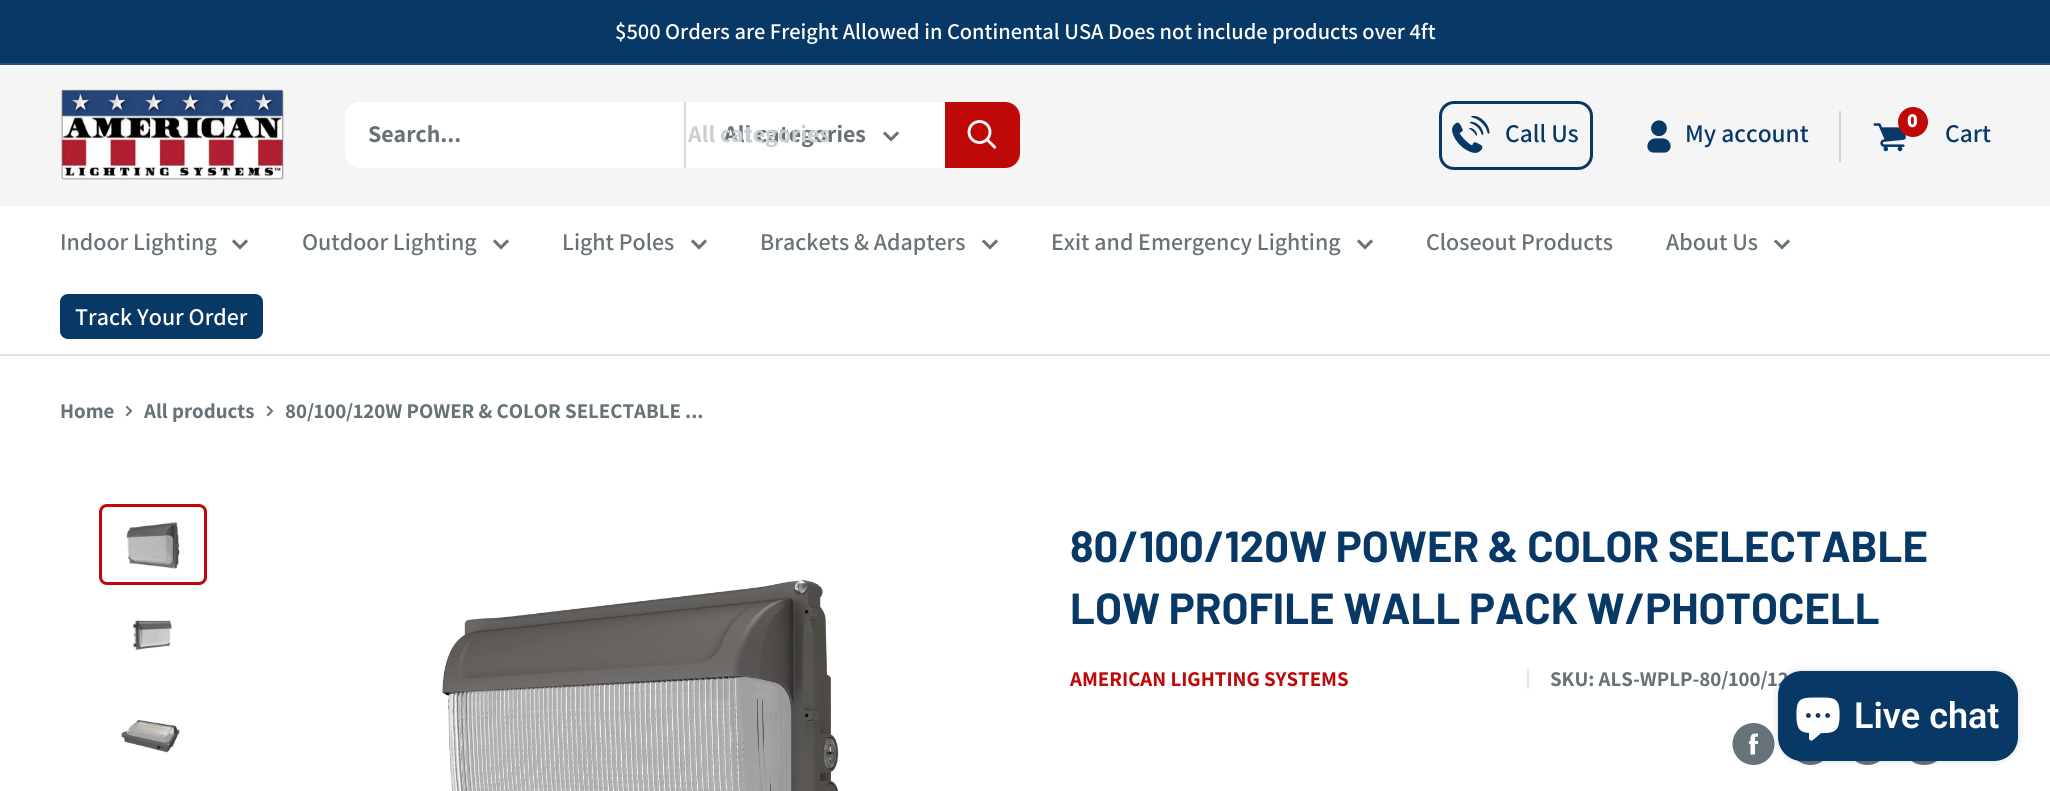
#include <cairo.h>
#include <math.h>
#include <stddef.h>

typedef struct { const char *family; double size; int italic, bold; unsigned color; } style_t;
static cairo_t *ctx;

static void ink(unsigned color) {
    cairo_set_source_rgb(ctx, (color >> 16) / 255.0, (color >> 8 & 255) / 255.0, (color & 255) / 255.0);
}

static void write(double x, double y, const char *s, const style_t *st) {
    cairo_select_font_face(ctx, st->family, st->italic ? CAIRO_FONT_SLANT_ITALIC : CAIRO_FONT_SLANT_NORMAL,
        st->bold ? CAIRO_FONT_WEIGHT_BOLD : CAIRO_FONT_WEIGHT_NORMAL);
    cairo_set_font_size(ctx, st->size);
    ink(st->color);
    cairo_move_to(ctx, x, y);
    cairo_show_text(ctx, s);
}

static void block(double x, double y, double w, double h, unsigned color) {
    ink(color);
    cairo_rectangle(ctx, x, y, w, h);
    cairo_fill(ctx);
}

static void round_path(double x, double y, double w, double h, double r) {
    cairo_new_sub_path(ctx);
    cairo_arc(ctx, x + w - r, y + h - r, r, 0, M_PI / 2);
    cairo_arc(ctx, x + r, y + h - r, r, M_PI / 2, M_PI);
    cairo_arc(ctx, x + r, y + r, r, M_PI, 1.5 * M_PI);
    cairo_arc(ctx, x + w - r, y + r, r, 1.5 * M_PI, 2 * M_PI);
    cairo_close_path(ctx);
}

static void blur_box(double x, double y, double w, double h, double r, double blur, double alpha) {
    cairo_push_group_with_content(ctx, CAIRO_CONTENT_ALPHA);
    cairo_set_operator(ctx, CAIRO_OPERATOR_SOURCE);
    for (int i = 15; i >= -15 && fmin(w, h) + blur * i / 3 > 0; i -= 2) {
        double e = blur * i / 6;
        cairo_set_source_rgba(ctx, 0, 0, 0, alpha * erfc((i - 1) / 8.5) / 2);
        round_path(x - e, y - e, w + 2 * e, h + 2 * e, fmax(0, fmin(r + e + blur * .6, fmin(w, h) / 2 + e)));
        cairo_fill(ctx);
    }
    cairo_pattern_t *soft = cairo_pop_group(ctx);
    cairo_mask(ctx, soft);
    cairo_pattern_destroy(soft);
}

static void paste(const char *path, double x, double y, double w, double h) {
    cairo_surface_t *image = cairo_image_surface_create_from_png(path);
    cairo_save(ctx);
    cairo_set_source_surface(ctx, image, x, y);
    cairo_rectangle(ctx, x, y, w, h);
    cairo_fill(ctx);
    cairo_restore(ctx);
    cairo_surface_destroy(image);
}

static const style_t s1 = {"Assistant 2 ExtraLight", 22.5, 0, 0, 0xffffff};
static const style_t s2 = {"Assistant ExtraLight", 24, 0, 0, 0x677279};
static const style_t s3 = {"Assistant ExtraLight", 24, 0, 0, 0xcbcfd1};
static const style_t s4 = {"Assistant 2 ExtraLight", 25.5, 0, 0, 0x083866};
static const style_t s5 = {"Assistant ExtraBold", 20, 0, 0, 0xffffff};
static const style_t s6 = {"Assistant 2 ExtraLight", 24, 0, 0, 0x677279};
static const style_t s7 = {"Assistant 2 ExtraLight", 24, 0, 0, 0xffffff};
static const style_t s8 = {"Assistant ExtraLight", 21, 0, 0, 0x677279};
static const style_t s9 = {"Barlow", 43.5, 0, 1, 0x083866};
static const style_t s10 = {"Assistant ExtraLight", 21, 0, 0, 0xbf0808};
static const style_t s11 = {"Roboto SemiBold", 36, 0, 0, 0xffffff};

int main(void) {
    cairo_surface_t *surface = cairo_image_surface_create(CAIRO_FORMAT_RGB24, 2050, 791);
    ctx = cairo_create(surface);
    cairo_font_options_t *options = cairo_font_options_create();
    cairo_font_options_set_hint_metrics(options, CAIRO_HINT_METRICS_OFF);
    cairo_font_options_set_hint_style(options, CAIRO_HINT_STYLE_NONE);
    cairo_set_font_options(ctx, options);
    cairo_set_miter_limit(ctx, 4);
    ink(0xffffff);
    cairo_paint(ctx);
    block(0, 0, 2050, 63, 0x083866);
    block(0, 63, 2050, 2, 0x2d4f70);
    write(615, 39, "$500 Orders are Freight Allowed in Continental USA Does not include products over 4ft", &s1);
    block(0, 65, 2050, 141, 0xf5f5f5);
    paste("pic1.png", 61, 89, 223, 91);
    ink(0xffffff);
    round_path(345, 102, 675, 66, 15);
    cairo_fill(ctx);
    write(368, 142, "Search...", &s2);
    block(684, 102, 2, 66, 0xdadadb);
    write(724, 142, "All categories", &s2);
    write(688, 142, "All categories", &s3);
    cairo_new_path(ctx);
    cairo_move_to(ctx, 897, 133.5);
    cairo_line_to(ctx, 891, 139.5);
    cairo_line_to(ctx, 885, 133.5);
    ink(0x677279);
    cairo_set_line_width(ctx, 3);
    cairo_set_line_cap(ctx, CAIRO_LINE_CAP_SQUARE);
    cairo_stroke(ctx);
    ink(0xbf0808);
    cairo_new_path(ctx);
    cairo_move_to(ctx, 945, 102);
    cairo_line_to(ctx, 1005, 102);
    cairo_curve_to(ctx, 1013.5, 102, 1020, 108.5, 1020, 117);
    cairo_line_to(ctx, 1020, 153);
    cairo_curve_to(ctx, 1020, 161.5, 1013.5, 168, 1005, 168);
    cairo_line_to(ctx, 945, 168);
    cairo_close_path(ctx);
    cairo_fill(ctx);
    cairo_new_path(ctx);
    cairo_move_to(ctx, 994.5, 147);
    cairo_line_to(ctx, 987.5, 140);
    ink(0xffffff);
    cairo_set_line_width(ctx, 2.9);
    cairo_stroke(ctx);
    cairo_arc(ctx, 979.5, 132, 10.5, 0, 2 * M_PI);
    cairo_set_line_cap(ctx, CAIRO_LINE_CAP_BUTT);
    cairo_stroke(ctx);
    round_path(1440.5, 102.5, 151, 66, 13.5);
    ink(0x083866);
    cairo_set_line_width(ctx, 3);
    cairo_stroke(ctx);
    paste("pic2.png", 1452, 116, 38, 37);
    write(1505, 142, "Call Us", &s4);
    paste("pic3.png", 1647, 120, 24, 33);
    write(1685, 142, "My account", &s4);
    block(1839, 111, 2, 51, 0xd3d3d4);
    paste("pic4.png", 1873, 123, 33, 29);
    ink(0xbf0808);
    cairo_arc(ctx, 1913, 122, 15, 0, 2 * M_PI);
    cairo_fill(ctx);
    write(1907, 127, "0", &s5);
    write(1945, 142, "Cart", &s4);
    block(0, 354, 2050, 2, 0xe1e3e4);
    write(60, 250, "Indoor Lighting", &s6);
    cairo_new_path(ctx);
    cairo_move_to(ctx, 246, 241.5);
    cairo_line_to(ctx, 240, 247.5);
    cairo_line_to(ctx, 234, 241.5);
    cairo_set_line_cap(ctx, CAIRO_LINE_CAP_SQUARE);
    cairo_stroke(ctx);
    write(302, 250, "Outdoor Lighting", &s6);
    cairo_new_path(ctx);
    cairo_move_to(ctx, 507, 241.5);
    cairo_line_to(ctx, 501, 247.5);
    cairo_line_to(ctx, 495, 241.5);
    cairo_stroke(ctx);
    write(562, 250, "Light Poles", &s6);
    cairo_new_path(ctx);
    cairo_move_to(ctx, 705, 241.5);
    cairo_line_to(ctx, 699, 247.5);
    cairo_line_to(ctx, 693, 241.5);
    cairo_stroke(ctx);
    write(760, 250, "Brackets & Adapters", &s6);
    cairo_new_path(ctx);
    cairo_move_to(ctx, 996, 241.5);
    cairo_line_to(ctx, 990, 247.5);
    cairo_line_to(ctx, 984, 241.5);
    cairo_stroke(ctx);
    write(1051, 250, "Exit and Emergency Lighting", &s6);
    cairo_new_path(ctx);
    cairo_move_to(ctx, 1371, 241.5);
    cairo_line_to(ctx, 1365, 247.5);
    cairo_line_to(ctx, 1359, 241.5);
    cairo_stroke(ctx);
    write(1426, 250, "Closeout Products", &s6);
    write(1666, 250, "About Us", &s6);
    cairo_new_path(ctx);
    cairo_move_to(ctx, 1788, 241.5);
    cairo_line_to(ctx, 1782, 247.5);
    cairo_line_to(ctx, 1776, 241.5);
    cairo_stroke(ctx);
    ink(0x083866);
    round_path(60, 294, 203, 45, 8);
    cairo_fill(ctx);
    write(75, 325, "Track Your Order", &s7);
    write(60, 418, "Home", &s8);
    cairo_new_path(ctx);
    cairo_move_to(ctx, 127, 407);
    cairo_line_to(ctx, 131, 411);
    cairo_line_to(ctx, 127, 415);
    cairo_set_line_width(ctx, 2);
    cairo_stroke(ctx);
    write(144, 418, "All products", &s8);
    cairo_new_path(ctx);
    cairo_move_to(ctx, 268, 407);
    cairo_line_to(ctx, 272, 411);
    cairo_line_to(ctx, 268, 415);
    cairo_stroke(ctx);
    write(285, 418, "80/100/120W POWER & COLOR SELECTABLE ...", &s8);
    round_path(100.5, 505.5, 105, 78, 6.5);
    ink(0xbf0808);
    cairo_set_line_width(ctx, 3);
    cairo_set_line_cap(ctx, CAIRO_LINE_CAP_BUTT);
    cairo_stroke(ctx);
    paste("pic5.png", 126, 522, 54, 47);
    paste("pic6.png", 133, 620, 39, 30);
    paste("pic7.png", 121, 720, 59, 33);
    paste("pic8.png", 442, 580, 397, 211);
    write(1070, 562, "80/100/120W POWER & COLOR SELECTABLE", &s9);
    write(1070, 624, "LOW PROFILE WALL PACK W/PHOTOCELL", &s9);
    write(1070, 686, "AMERICAN LIGHTING SYSTEMS", &s10);
    block(1527, 669, 2, 20, 0xe1e3e4);
    write(1550, 686, "SKU: ALS-WPLP-80/100/12", &s8);
    paste("pic9.png", 1732, 723, 43, 42);
    paste("pic10.png", 1797, 760, 26, 5);
    paste("pic11.png", 1855, 761, 25, 4);
    cairo_new_path(ctx);
    cairo_move_to(ctx, 1924, 765);
    cairo_curve_to(ctx, 1897, 765, 1897, 723, 1924, 723);
    cairo_curve_to(ctx, 1952, 723, 1952, 765, 1924, 765);
    cairo_close_path(ctx);
    cairo_move_to(ctx, 1920, 738);
    cairo_line_to(ctx, 1929, 738);
    cairo_line_to(ctx, 1924, 742);
    cairo_close_path(ctx);
    cairo_move_to(ctx, 1932, 740);
    cairo_line_to(ctx, 1932, 750);
    cairo_line_to(ctx, 1917, 750);
    cairo_line_to(ctx, 1917, 740);
    cairo_line_to(ctx, 1924, 746);
    cairo_close_path(ctx);
    cairo_move_to(ctx, 1935, 735);
    cairo_line_to(ctx, 1914, 735);
    cairo_line_to(ctx, 1914, 753);
    cairo_line_to(ctx, 1935, 753);
    cairo_close_path(ctx);
    cairo_fill(ctx);
    ink(0x000000);
    blur_box(1778, 671, 240, 90, 24, 4, 0.15);
    ink(0x083866);
    round_path(1778, 671, 240, 90, 24);
    cairo_fill(ctx);
    paste("pic12.png", 1796, 697, 44, 44);
    write(1854, 728, "Live chat", &s11);
    cairo_surface_write_to_png(surface, "screenshot.png");
    cairo_font_options_destroy(options);
    cairo_destroy(ctx);
    cairo_surface_destroy(surface);
    return 0;
}
